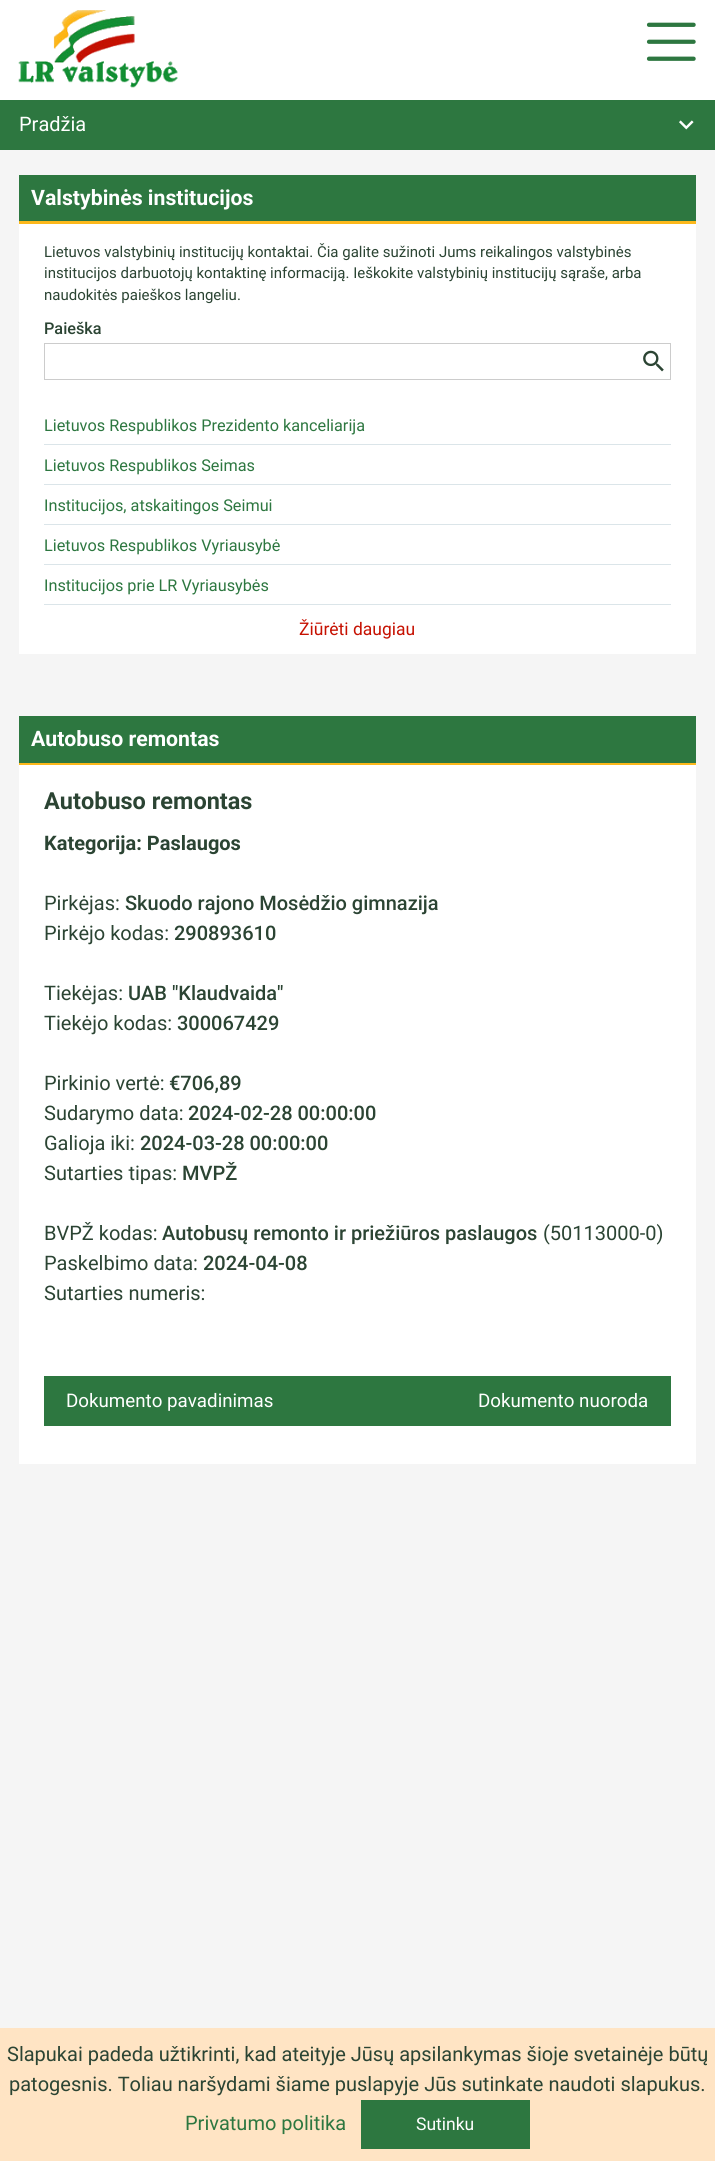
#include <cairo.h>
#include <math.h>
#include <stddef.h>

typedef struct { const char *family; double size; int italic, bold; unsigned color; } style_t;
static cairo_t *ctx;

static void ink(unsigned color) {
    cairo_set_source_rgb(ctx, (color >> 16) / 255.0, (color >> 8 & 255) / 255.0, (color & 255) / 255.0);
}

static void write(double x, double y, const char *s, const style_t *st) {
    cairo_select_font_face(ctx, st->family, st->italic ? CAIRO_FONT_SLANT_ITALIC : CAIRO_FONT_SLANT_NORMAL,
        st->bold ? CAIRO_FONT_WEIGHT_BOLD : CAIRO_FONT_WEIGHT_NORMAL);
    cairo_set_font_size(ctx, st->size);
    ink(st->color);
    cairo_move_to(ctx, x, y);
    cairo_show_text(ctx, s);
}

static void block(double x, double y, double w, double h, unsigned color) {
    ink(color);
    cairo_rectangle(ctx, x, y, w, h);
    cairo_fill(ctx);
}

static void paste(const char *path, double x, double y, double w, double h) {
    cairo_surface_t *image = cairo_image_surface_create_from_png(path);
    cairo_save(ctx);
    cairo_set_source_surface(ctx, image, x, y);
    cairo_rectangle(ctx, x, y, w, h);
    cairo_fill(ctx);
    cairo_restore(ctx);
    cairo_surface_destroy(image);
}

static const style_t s1 = {"Roboto", 20, 0, 0, 0xffffff};
static const style_t s2 = {"Roboto", 21.25, 0, 1, 0xffffff};
static const style_t s3 = {"Roboto", 15, 0, 0, 0x2b4433};
static const style_t s4 = {"Roboto Medium", 16.25, 0, 0, 0x2b4433};
static const style_t s5 = {"Roboto", 16.25, 0, 0, 0x2d7740};
static const style_t s6 = {"Roboto", 17.5, 0, 0, 0xc61101};
static const style_t s7 = {"Roboto", 23.5, 0, 1, 0x2b4433};
static const style_t s8 = {"Roboto", 20, 0, 1, 0x2b4433};
static const style_t s9 = {"Roboto", 20, 0, 0, 0x2b4433};
static const style_t s10 = {"Roboto Medium", 20, 0, 0, 0x2b4433};
static const style_t s11 = {"Roboto", 18.75, 0, 0, 0xffffff};
static const style_t s12 = {"Roboto", 20, 0, 0, 0x2d7740};
static const style_t s13 = {"Roboto", 17.5, 0, 0, 0xffffff};

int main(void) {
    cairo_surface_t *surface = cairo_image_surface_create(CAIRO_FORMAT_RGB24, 715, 2161);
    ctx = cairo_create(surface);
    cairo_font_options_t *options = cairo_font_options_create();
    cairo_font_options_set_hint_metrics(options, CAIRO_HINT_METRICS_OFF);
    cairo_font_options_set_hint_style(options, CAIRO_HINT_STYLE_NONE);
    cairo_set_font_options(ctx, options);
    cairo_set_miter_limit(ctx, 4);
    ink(0xf5f5f5);
    cairo_paint(ctx);
    block(0, 0, 715, 100, 0xffffff);
    paste("pic1.png", 18, 10, 160, 78);
    paste("pic2.png", 646, 22, 50, 39);
    block(0, 100, 715, 50, 0x2d7740);
    write(19, 131, "Pradžia", &s1);
    paste("pic3.png", 679, 120, 15, 10);
    block(19, 224, 677, 430, 0xffffff);
    block(19, 175, 677, 46, 0x2d7740);
    block(19, 221, 677, 3, 0xfcb81b);
    write(31, 205, "Valstybinės institucijos", &s2);
    write(44, 257, "Lietuvos valstybinių institucijų kontaktai. Čia galite sužinoti Jums reikalingos valstybinės", &s3);
    write(44, 278, "institucijos darbuotojų kontaktinę informaciją. Ieškokite valstybinių institucijų sąraše, arba", &s3);
    write(44, 300, "naudokitės paieškos langeliu.", &s3);
    write(44, 334, "Paieška", &s4);
    cairo_rectangle(ctx, 44.5, 343.5, 626, 36);
    ink(0xcccccc);
    cairo_set_line_width(ctx, 1);
    cairo_stroke(ctx);
    paste("pic4.png", 643, 350, 21, 22);
    block(44, 444, 627, 1, 0xdbe5e9);
    write(44, 431, "Lietuvos Respublikos Prezidento kanceliarija", &s5);
    block(44, 484, 627, 1, 0xdbe5e9);
    write(44, 471, "Lietuvos Respublikos Seimas", &s5);
    block(44, 524, 627, 1, 0xdbe5e9);
    write(44, 511, "Institucijos, atskaitingos Seimui", &s5);
    block(44, 564, 627, 1, 0xdbe5e9);
    write(44, 551, "Lietuvos Respublikos Vyriausybė", &s5);
    block(44, 604, 627, 1, 0xdbe5e9);
    write(44, 591, "Institucijos prie LR Vyriausybės", &s5);
    write(299, 635, "Žiūrėti daugiau", &s6);
    block(19, 716, 677, 47, 0x2d7740);
    block(19, 763, 677, 2, 0xfcb81b);
    write(31, 746, "Autobuso remontas", &s2);
    block(19, 765, 677, 699, 0xffffff);
    write(44, 809, "Autobuso remontas", &s7);
    write(44, 850, "Kategorija: Paslaugos", &s8);
    write(44, 910, "Pirkėjas:", &s9);
    write(125, 910, "Skuodo rajono Mosėdžio gimnazija", &s10);
    write(44, 940, "Pirkėjo kodas:", &s9);
    write(174, 940, "290893610", &s10);
    write(44, 1000, "Tiekėjas:", &s9);
    write(128, 1000, "UAB \"Klaudvaida\"", &s10);
    write(44, 1030, "Tiekėjo kodas:", &s9);
    write(177, 1030, "300067429", &s10);
    write(44, 1090, "Pirkinio vertė:", &s9);
    write(169, 1090, "€706,89", &s10);
    write(44, 1120, "Sudarymo data:", &s9);
    write(188, 1120, "2024-02-28 00:00:00", &s10);
    write(44, 1150, "Galioja iki:", &s9);
    write(140, 1150, "2024-03-28 00:00:00", &s10);
    write(44, 1180, "Sutarties tipas:", &s9);
    write(182, 1180, "MVPŽ", &s10);
    write(44, 1240, "BVPŽ kodas:", &s9);
    write(162, 1240, "Autobusų remonto ir priežiūros paslaugos", &s10);
    write(543, 1240, "(50113000-0)", &s9);
    write(44, 1270, "Paskelbimo data:", &s9);
    write(203, 1270, "2024-04-08", &s10);
    write(44, 1300, "Sutarties numeris:", &s9);
    block(44, 1376, 627, 50, 0x2d7740);
    write(66, 1407, "Dokumento pavadinimas", &s11);
    write(478, 1407, "Dokumento nuoroda", &s11);
    block(0, 2028, 715, 133, 0xffe4c4);
    write(7, 2061, "Slapukai padeda užtikrinti, kad ateityje Jūsų apsilankymas šioje svetainėje būtų", &s9);
    write(9, 2091, "patogesnis. Toliau naršydami šiame puslapyje Jūs sutinkate naudoti slapukus.", &s9);
    write(185, 2130, "Privatumo politika", &s12);
    block(361, 2100, 169, 49, 0x2d7740);
    write(416, 2130, "Sutinku", &s13);
    cairo_surface_write_to_png(surface, "screenshot.png");
    cairo_font_options_destroy(options);
    cairo_destroy(ctx);
    cairo_surface_destroy(surface);
    return 0;
}
